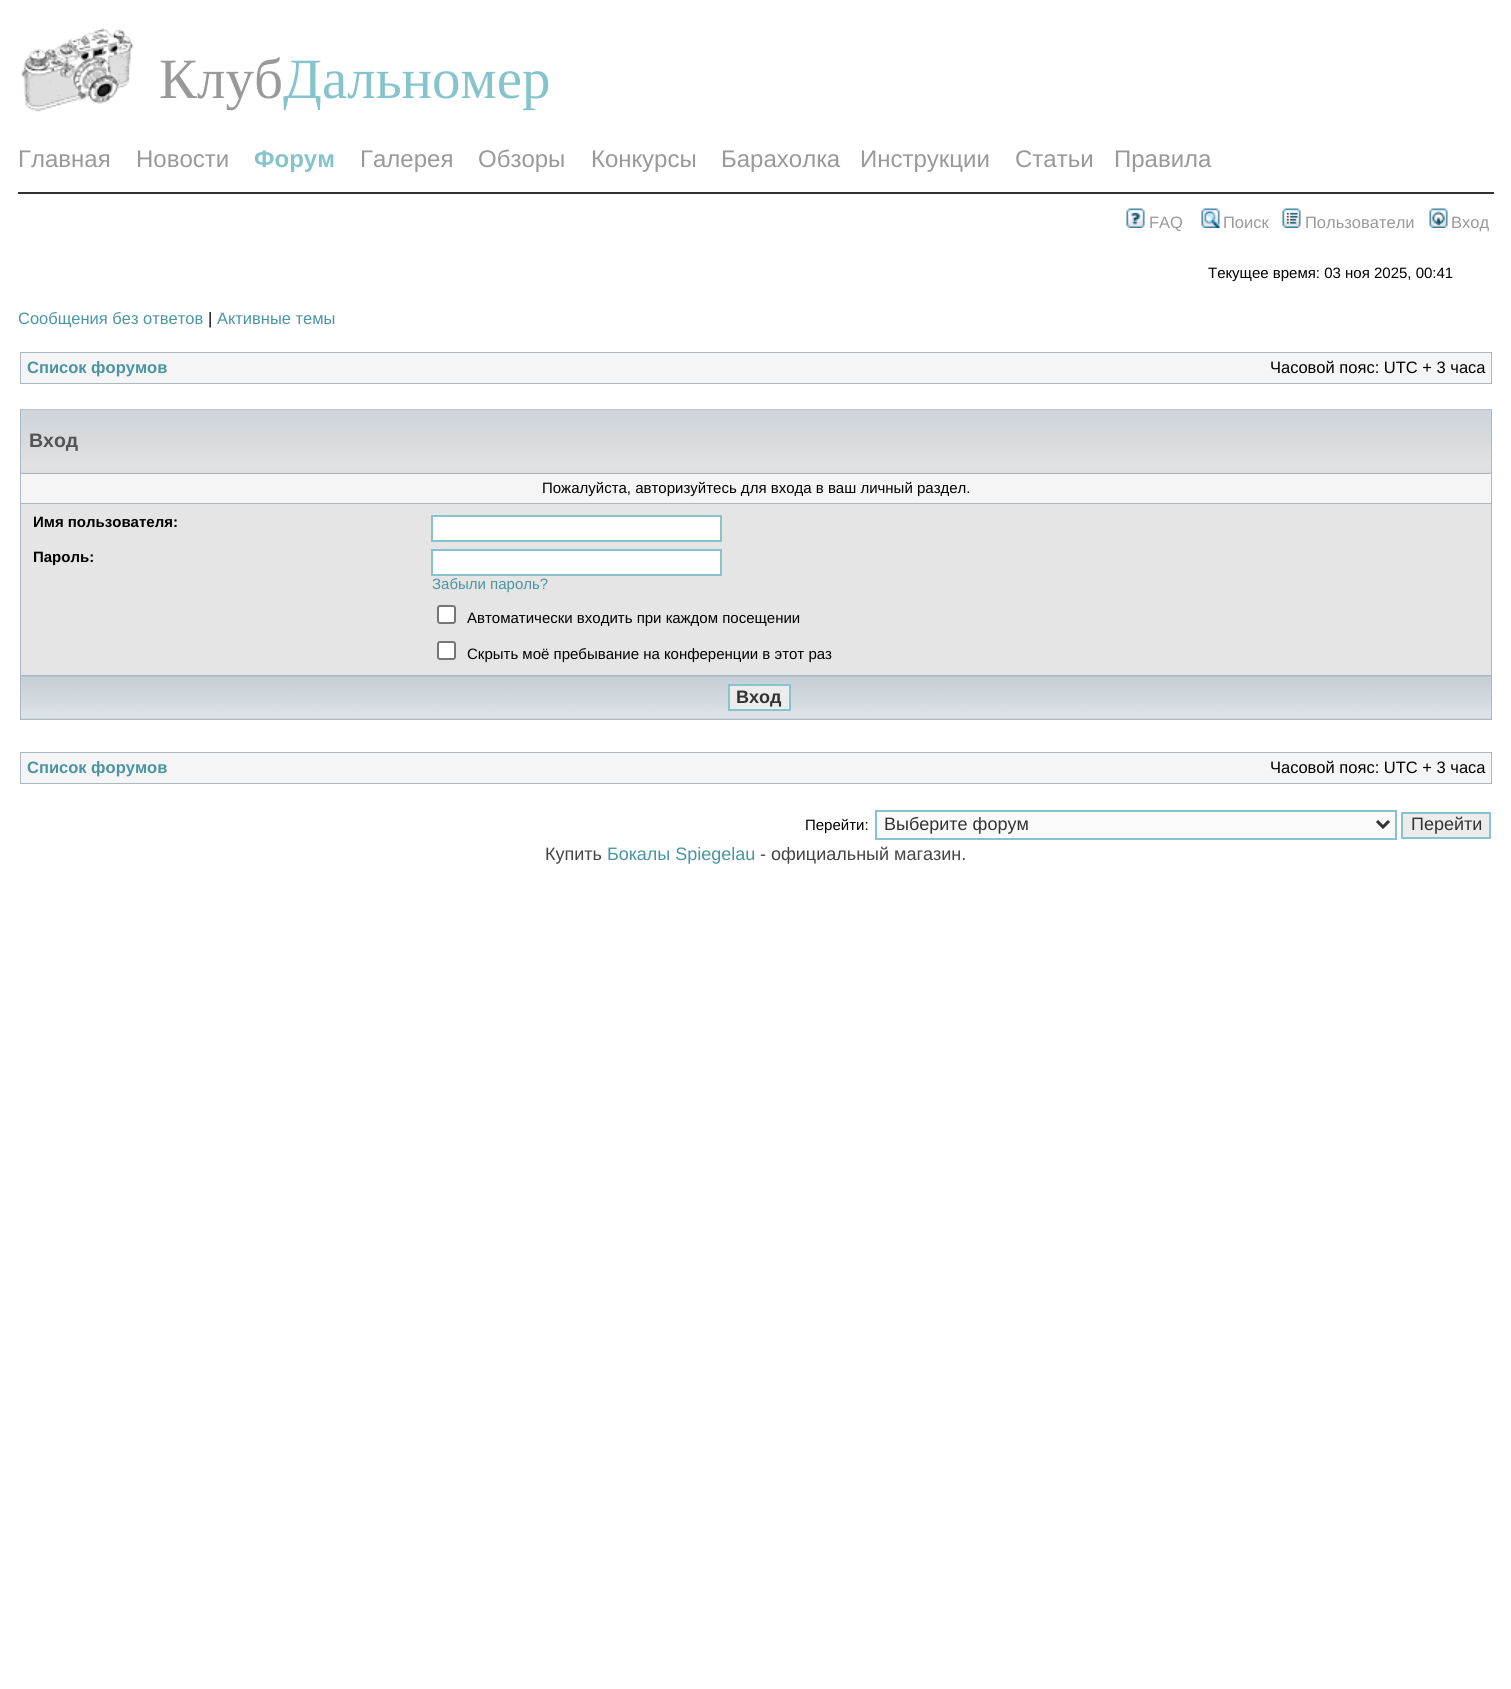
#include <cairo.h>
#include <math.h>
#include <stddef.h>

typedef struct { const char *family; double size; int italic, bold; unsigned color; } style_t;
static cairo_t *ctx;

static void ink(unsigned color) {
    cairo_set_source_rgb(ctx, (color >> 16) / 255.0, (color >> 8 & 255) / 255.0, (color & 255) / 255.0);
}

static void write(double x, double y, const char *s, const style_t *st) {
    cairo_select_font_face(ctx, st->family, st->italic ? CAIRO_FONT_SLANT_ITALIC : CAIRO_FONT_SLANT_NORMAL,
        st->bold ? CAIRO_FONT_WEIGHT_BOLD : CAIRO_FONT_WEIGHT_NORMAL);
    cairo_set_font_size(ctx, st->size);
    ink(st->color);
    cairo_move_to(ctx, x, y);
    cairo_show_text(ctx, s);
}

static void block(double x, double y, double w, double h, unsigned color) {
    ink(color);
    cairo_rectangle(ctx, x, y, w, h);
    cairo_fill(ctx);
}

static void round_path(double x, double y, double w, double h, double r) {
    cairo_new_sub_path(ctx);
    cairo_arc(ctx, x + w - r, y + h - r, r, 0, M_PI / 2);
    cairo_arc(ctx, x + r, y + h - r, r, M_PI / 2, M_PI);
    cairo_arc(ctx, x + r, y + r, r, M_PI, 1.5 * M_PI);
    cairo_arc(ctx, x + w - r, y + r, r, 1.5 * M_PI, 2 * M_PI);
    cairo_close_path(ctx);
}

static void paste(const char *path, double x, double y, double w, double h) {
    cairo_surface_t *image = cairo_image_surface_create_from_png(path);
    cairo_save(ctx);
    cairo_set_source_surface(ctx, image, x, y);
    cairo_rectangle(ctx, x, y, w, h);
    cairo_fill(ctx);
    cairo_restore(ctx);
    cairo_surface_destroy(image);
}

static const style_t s1 = {"Liberation Serif", 57, 0, 0, 0x999999};
static const style_t s2 = {"Liberation Serif", 57, 0, 0, 0x85c4cd};
static const style_t s3 = {"Liberation Sans", 24, 0, 0, 0x999999};
static const style_t s4 = {"Liberation Sans", 24, 0, 1, 0x85c4cd};
static const style_t s5 = {"Liberation Sans", 16.5, 0, 0, 0x999999};
static const style_t s6 = {"Liberation Sans", 15, 0, 0, 0x000000};
static const style_t s7 = {"Liberation Sans", 16.5, 0, 0, 0x4995a0};
static const style_t s8 = {"Liberation Sans", 16.5, 0, 0, 0x000000};
static const style_t s9 = {"Liberation Sans", 16.5, 0, 1, 0x4995a0};
static const style_t s10 = {"Liberation Sans", 19.5, 0, 1, 0x545454};
static const style_t s11 = {"Liberation Sans", 15, 0, 1, 0x000000};
static const style_t s12 = {"Liberation Sans", 15, 0, 0, 0x4995a0};
static const style_t s13 = {"Liberation Sans", 18, 0, 1, 0x333333};
static const style_t s14 = {"Liberation Sans", 18, 0, 0, 0x333333};
static const style_t s15 = {"Liberation Sans", 18, 0, 0, 0x444444};
static const style_t s16 = {"Liberation Sans", 18, 0, 0, 0x4995a0};

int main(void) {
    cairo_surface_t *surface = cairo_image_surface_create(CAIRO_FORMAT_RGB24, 1511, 1689);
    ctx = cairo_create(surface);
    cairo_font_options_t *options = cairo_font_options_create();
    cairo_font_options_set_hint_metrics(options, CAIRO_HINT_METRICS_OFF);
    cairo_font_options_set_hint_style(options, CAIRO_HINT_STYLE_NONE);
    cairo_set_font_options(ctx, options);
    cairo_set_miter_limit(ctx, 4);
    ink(0xffffff);
    cairo_paint(ctx);
    paste("pic1.png", 21, 28, 113, 84);
    write(159, 98, "Клуб", &s1);
    write(283, 98, "Дальномер", &s2);
    block(18, 192, 1476, 2, 0x333333);
    write(18, 167, "Главная", &s3);
    write(136, 167, "Новости", &s3);
    write(254, 167, "Форум", &s4);
    write(360, 167, "Галерея", &s3);
    write(478, 167, "Обзоры", &s3);
    write(591, 167, "Конкурсы", &s3);
    write(721, 167, "Барахолка", &s3);
    write(860, 167, "Инструкции", &s3);
    write(1015, 167, "Статьи", &s3);
    write(1114, 167, "Правила", &s3);
    paste("pic2.png", 1126, 208, 19, 20);
    write(1149, 228, "FAQ", &s5);
    paste("pic3.png", 1201, 208, 19, 20);
    write(1223, 228, "Поиск", &s5);
    paste("pic4.png", 1282, 208, 19, 20);
    write(1305, 228, "Пользователи", &s5);
    paste("pic5.png", 1429, 208, 19, 20);
    write(1451, 228, "Вход", &s5);
    write(1208, 278, "Текущее время: 03 ноя 2025, 00:41", &s6);
    write(18, 324, "Сообщения без ответов", &s7);
    write(208, 324, "|", &s8);
    write(217, 324, "Активные темы", &s7);
    block(20, 352, 1472, 32, 0xa9b8c2);
    block(21, 353, 1470, 30, 0xf5f5f5);
    write(27, 373, "Список форумов", &s9);
    write(1270, 373, "Часовой пояс: UTC + 3 часа", &s8);
    block(20, 409, 1472, 311, 0xa9b8c2);
    block(21, 472, 1470, 1, 0xd9dee2);
    paste("pic6.png", 21, 409, 1470, 63);
    write(29, 447, "Вход", &s10);
    block(21, 474, 1470, 29, 0xf5f5f5);
    write(542, 493, "Пожалуйста, авторизуйтесь для входа в ваш личный раздел.", &s6);
    block(21, 504, 1470, 171, 0xe5e5e5);
    write(33, 527, "Имя пользователя:", &s11);
    ink(0xffffff);
    cairo_rectangle(ctx, 432, 516, 289, 25);
    cairo_fill_preserve(ctx);
    ink(0x85c4cd);
    cairo_stroke(ctx);
    write(33, 562, "Пароль:", &s11);
    ink(0xffffff);
    cairo_rectangle(ctx, 432, 550, 289, 25);
    cairo_fill_preserve(ctx);
    ink(0x85c4cd);
    cairo_stroke(ctx);
    write(432, 589, "Забыли пароль?", &s12);
    ink(0xffffff);
    round_path(438, 606, 17, 17, 2);
    cairo_fill_preserve(ctx);
    ink(0x767676);
    cairo_stroke(ctx);
    write(467, 623, "Автоматически входить при каждом посещении", &s6);
    ink(0xffffff);
    round_path(438, 642, 17, 17, 2);
    cairo_fill_preserve(ctx);
    ink(0x767676);
    cairo_stroke(ctx);
    write(467, 659, "Скрыть моё пребывание на конференции в этот раз", &s6);
    block(21, 718, 1470, 1, 0xc8c8c8);
    paste("pic7.png", 21, 676, 1470, 43);
    ink(0xececec);
    cairo_rectangle(ctx, 729, 685, 61, 25);
    cairo_fill_preserve(ctx);
    ink(0x85c4cd);
    cairo_stroke(ctx);
    write(736, 703, "Вход", &s13);
    block(20, 752, 1472, 32, 0xa9b8c2);
    block(21, 753, 1470, 30, 0xf5f5f5);
    write(27, 773, "Список форумов", &s9);
    write(1270, 773, "Часовой пояс: UTC + 3 часа", &s8);
    write(805, 830, "Перейти:", &s6);
    ink(0xfafafa);
    cairo_rectangle(ctx, 876, 811, 520, 28);
    cairo_fill_preserve(ctx);
    ink(0x85c4cd);
    cairo_stroke(ctx);
    cairo_new_path(ctx);
    cairo_move_to(ctx, 1377, 821);
    cairo_line_to(ctx, 1383, 827);
    cairo_line_to(ctx, 1389, 821);
    ink(0x333333);
    cairo_set_line_width(ctx, 3);
    cairo_stroke(ctx);
    write(884, 830, "Выберите форум", &s14);
    ink(0xececec);
    cairo_rectangle(ctx, 1402, 813, 88, 25);
    cairo_fill_preserve(ctx);
    ink(0x85c4cd);
    cairo_set_line_width(ctx, 2);
    cairo_stroke(ctx);
    write(1411, 830, "Перейти", &s14);
    write(545, 860, "Купить", &s15);
    write(607, 860, "Бокалы Spiegelau", &s16);
    write(760, 860, "- официальный магазин.", &s15);
    cairo_surface_write_to_png(surface, "screenshot.png");
    cairo_font_options_destroy(options);
    cairo_destroy(ctx);
    cairo_surface_destroy(surface);
    return 0;
}
